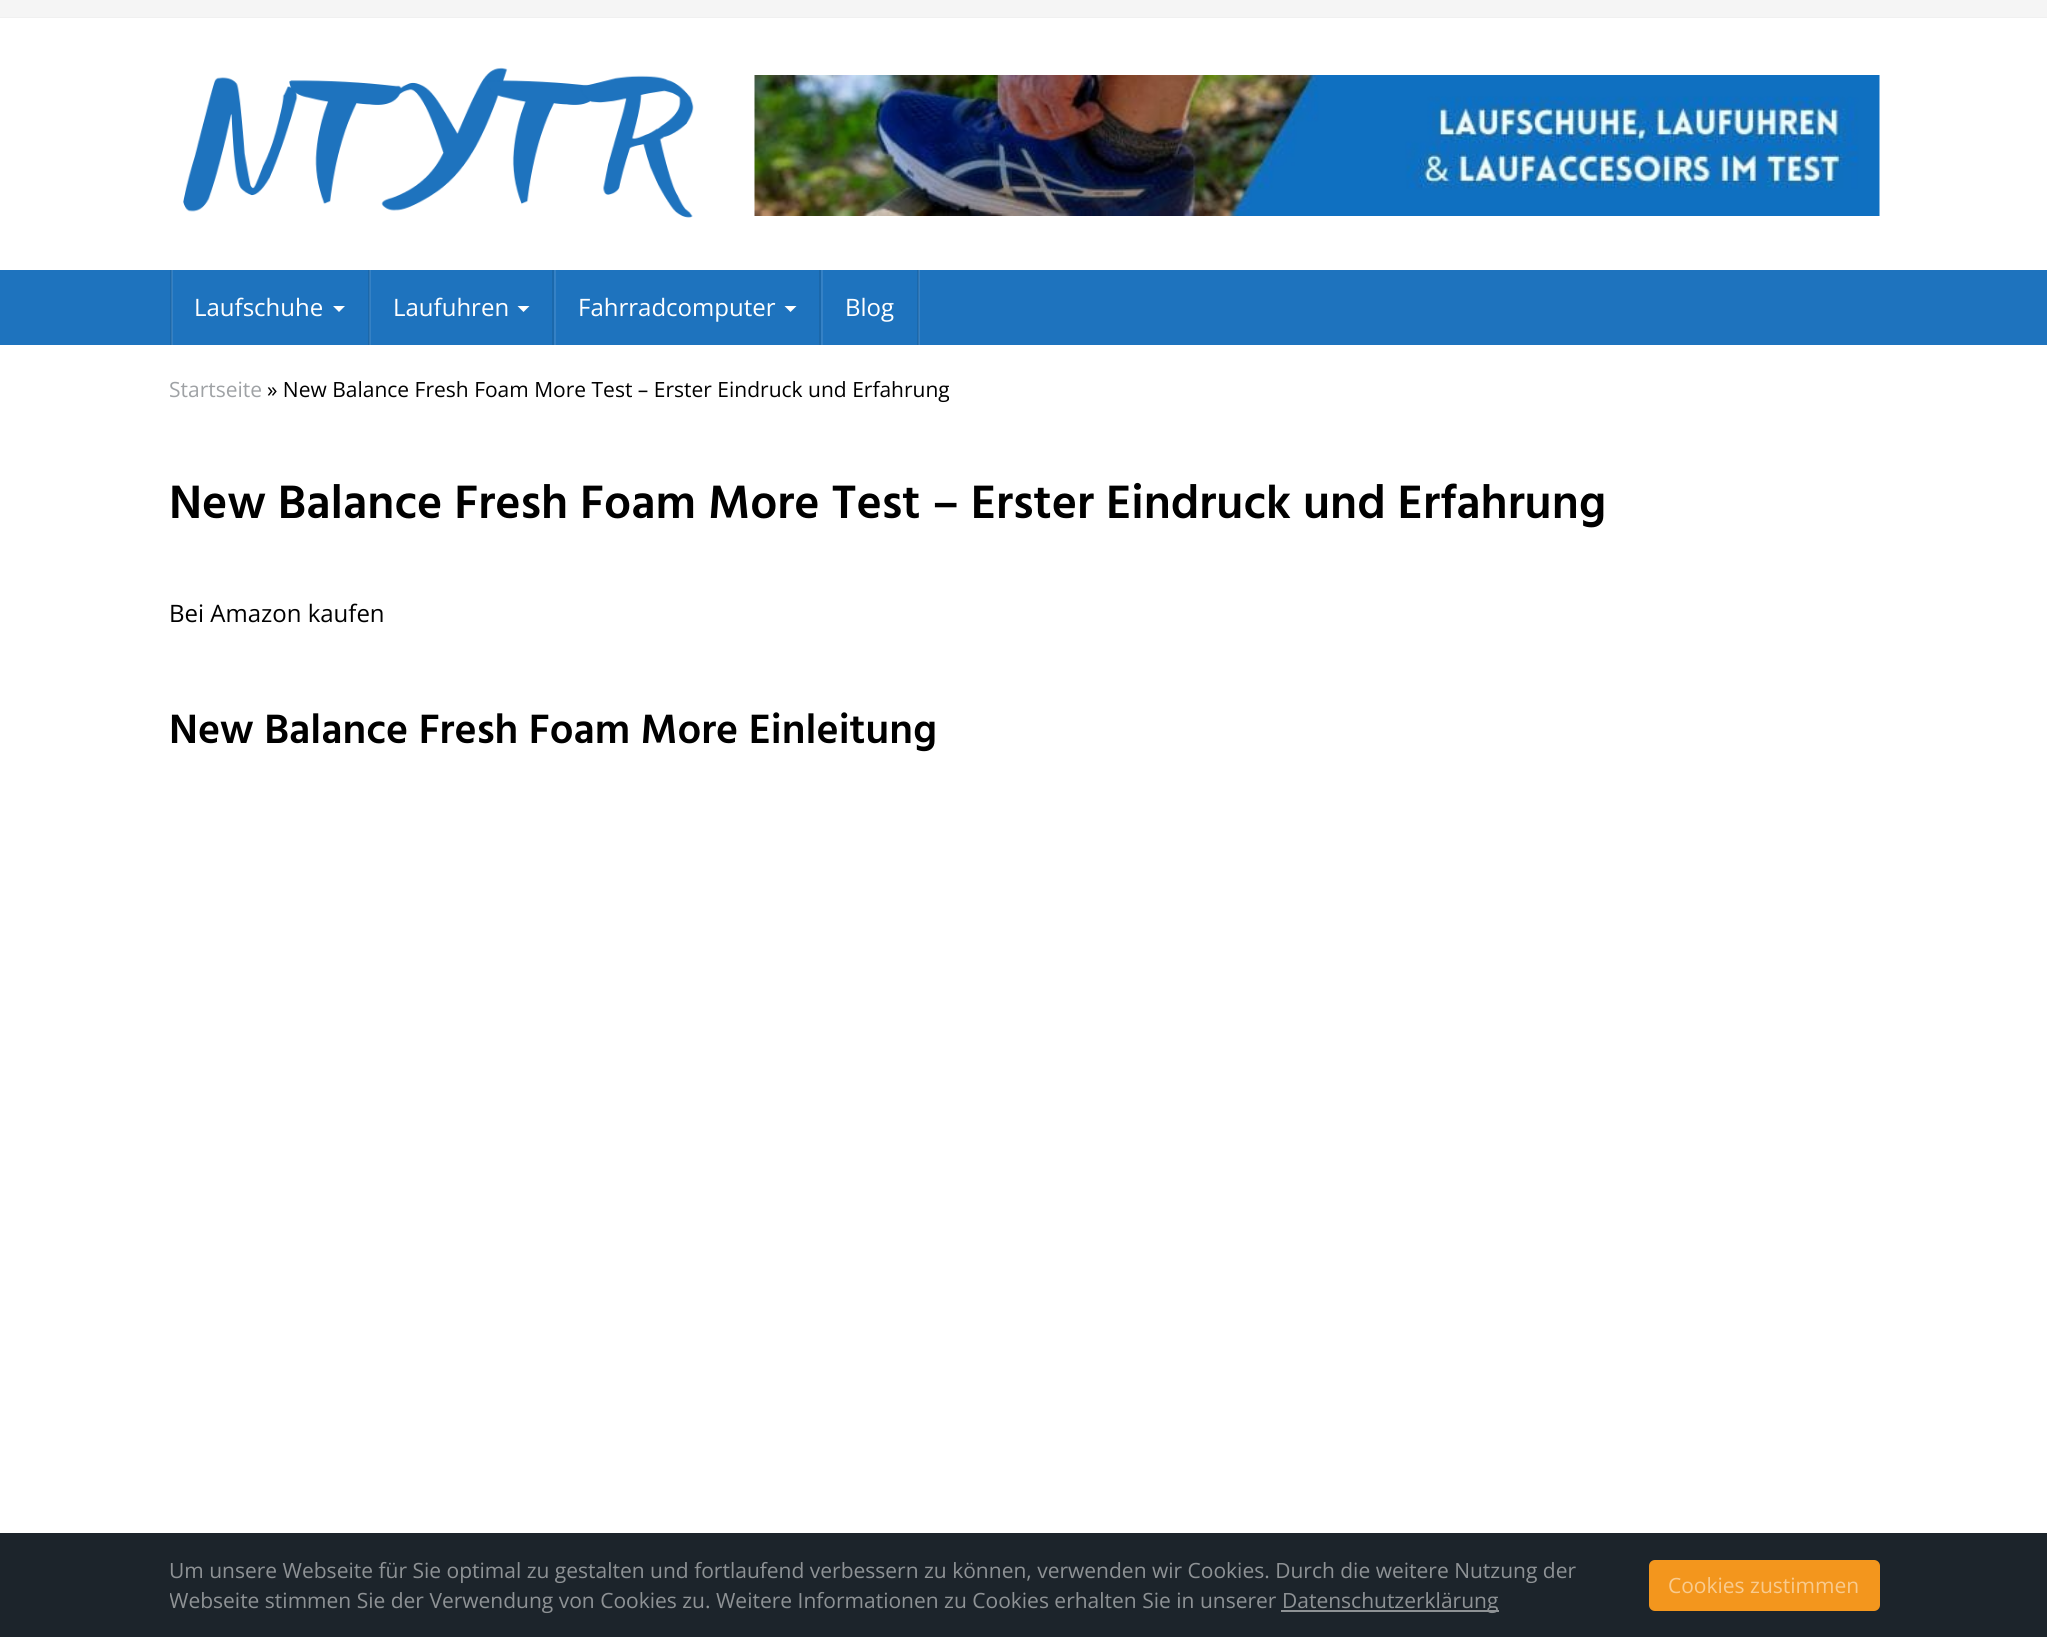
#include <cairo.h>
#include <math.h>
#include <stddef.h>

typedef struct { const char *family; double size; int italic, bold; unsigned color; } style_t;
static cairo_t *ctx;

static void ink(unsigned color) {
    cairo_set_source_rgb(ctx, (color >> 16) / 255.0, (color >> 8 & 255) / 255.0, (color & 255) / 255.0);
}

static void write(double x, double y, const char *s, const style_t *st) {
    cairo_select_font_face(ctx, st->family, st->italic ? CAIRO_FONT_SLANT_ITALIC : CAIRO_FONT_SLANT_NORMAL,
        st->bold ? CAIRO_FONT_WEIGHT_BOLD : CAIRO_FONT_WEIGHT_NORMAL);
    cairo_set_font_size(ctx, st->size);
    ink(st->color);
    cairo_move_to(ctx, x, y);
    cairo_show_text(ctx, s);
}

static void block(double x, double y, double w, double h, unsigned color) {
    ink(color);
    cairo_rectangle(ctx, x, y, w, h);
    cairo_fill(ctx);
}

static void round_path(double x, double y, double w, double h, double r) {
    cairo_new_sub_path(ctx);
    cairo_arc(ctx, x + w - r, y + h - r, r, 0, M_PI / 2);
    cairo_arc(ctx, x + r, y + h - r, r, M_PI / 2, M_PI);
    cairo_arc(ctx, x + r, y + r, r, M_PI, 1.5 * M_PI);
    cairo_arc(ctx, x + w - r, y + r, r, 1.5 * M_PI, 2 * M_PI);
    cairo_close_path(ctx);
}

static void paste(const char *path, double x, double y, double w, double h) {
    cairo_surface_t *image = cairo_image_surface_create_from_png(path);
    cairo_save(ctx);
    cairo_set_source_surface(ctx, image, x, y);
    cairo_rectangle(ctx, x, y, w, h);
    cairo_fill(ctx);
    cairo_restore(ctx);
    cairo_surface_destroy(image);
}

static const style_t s1 = {"Open Sans", 24, 0, 0, 0xffffff};
static const style_t s2 = {"Open Sans", 21, 0, 0, 0x9fa2a5};
static const style_t s3 = {"Open Sans", 21, 0, 0, 0x000000};
static const style_t s4 = {"Hind SemiBold", 48, 0, 0, 0x000000};
static const style_t s5 = {"Open Sans", 24, 0, 0, 0x000000};
static const style_t s6 = {"Hind SemiBold", 42, 0, 0, 0x000000};
static const style_t s7 = {"Open Sans", 21, 0, 0, 0x8e9295};
static const style_t s8 = {"Open Sans", 21, 0, 0, 0xf9cb8e};

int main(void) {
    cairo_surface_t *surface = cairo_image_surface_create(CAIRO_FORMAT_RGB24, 2047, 1637);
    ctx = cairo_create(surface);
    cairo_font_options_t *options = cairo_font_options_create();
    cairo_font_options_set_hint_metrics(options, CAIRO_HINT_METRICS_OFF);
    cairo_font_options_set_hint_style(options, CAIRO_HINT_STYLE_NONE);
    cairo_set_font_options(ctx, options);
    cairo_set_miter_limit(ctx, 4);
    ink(0xf5f5f5);
    cairo_paint(ctx);
    block(0, 17, 2047, 1, 0xf0f0f0);
    block(0, 18, 2047, 252, 0xffffff);
    paste("pic1.png", 183, 67, 511, 151);
    paste("pic2.png", 754, 75, 1126, 141);
    block(0, 270, 2047, 75, 0x1e73be);
    block(917, 270, 1, 75, 0x1b68ab);
    block(370, 270, 1, 75, 0x3581c5);
    block(172, 270, 1, 75, 0x3581c5);
    block(919, 270, 1, 75, 0x3581c5);
    block(918, 270, 1, 75, 0x3074b1);
    block(170, 270, 1, 75, 0x1b68ab);
    block(171, 270, 1, 75, 0x3277b3);
    block(368, 270, 1, 75, 0x1b68ab);
    block(369, 270, 1, 75, 0x3277b3);
    write(194, 316, "Laufschuhe", &s1);
    cairo_new_path(ctx);
    cairo_move_to(ctx, 333, 306);
    cairo_line_to(ctx, 345, 306);
    cairo_line_to(ctx, 339, 312);
    cairo_close_path(ctx);
    cairo_fill(ctx);
    block(552, 270, 2, 75, 0x1b68ab);
    write(393, 316, "Laufuhren", &s1);
    cairo_new_path(ctx);
    cairo_move_to(ctx, 517.5, 306);
    cairo_line_to(ctx, 529.5, 306);
    cairo_line_to(ctx, 523.5, 312);
    cairo_close_path(ctx);
    cairo_fill(ctx);
    block(819, 270, 2, 75, 0x1b68ab);
    block(554, 270, 2, 75, 0x3581c5);
    write(578, 316, "Fahrradcomputer", &s1);
    cairo_new_path(ctx);
    cairo_move_to(ctx, 784.5, 306);
    cairo_line_to(ctx, 796.5, 306);
    cairo_line_to(ctx, 790.5, 312);
    cairo_close_path(ctx);
    cairo_fill(ctx);
    block(821, 270, 2, 75, 0x3581c5);
    write(845, 316, "Blog", &s1);
    block(0, 345, 2047, 1188, 0xffffff);
    write(169, 397, "Startseite", &s2);
    write(267, 397, "» New Balance Fresh Foam More Test – Erster Eindruck und Erfahrung", &s3);
    write(169, 518, "New Balance Fresh Foam More Test – Erster Eindruck und Erfahrung", &s4);
    write(169, 622, "Bei Amazon kaufen", &s5);
    write(169, 743, "New Balance Fresh Foam More Einleitung", &s6);
    block(0, 1533, 2047, 104, 0x1c242b);
    write(169, 1578, "Um unsere Webseite für Sie optimal zu gestalten und fortlaufend verbessern zu können, verwenden wir Cookies. Durch die weitere Nutzung der", &s7);
    cairo_save(ctx);
    cairo_rectangle(ctx, 170, 1556, 1464, 60);
    cairo_clip(ctx);
    write(169, 1608, "Webseite stimmen Sie der Verwendung von Cookies zu. Weitere Informationen zu Cookies erhalten Sie in unserer", &s7);
    cairo_restore(ctx);
    block(1281, 1610, 218, 2, 0x8e9295);
    write(1282, 1608, "Datenschutzerklärung", &s7);
    ink(0xf3961d);
    round_path(1650, 1561, 229, 49, 5);
    cairo_fill_preserve(ctx);
    cairo_stroke(ctx);
    write(1668, 1593, "Cookies zustimmen", &s8);
    cairo_surface_write_to_png(surface, "screenshot.png");
    cairo_font_options_destroy(options);
    cairo_destroy(ctx);
    cairo_surface_destroy(surface);
    return 0;
}
